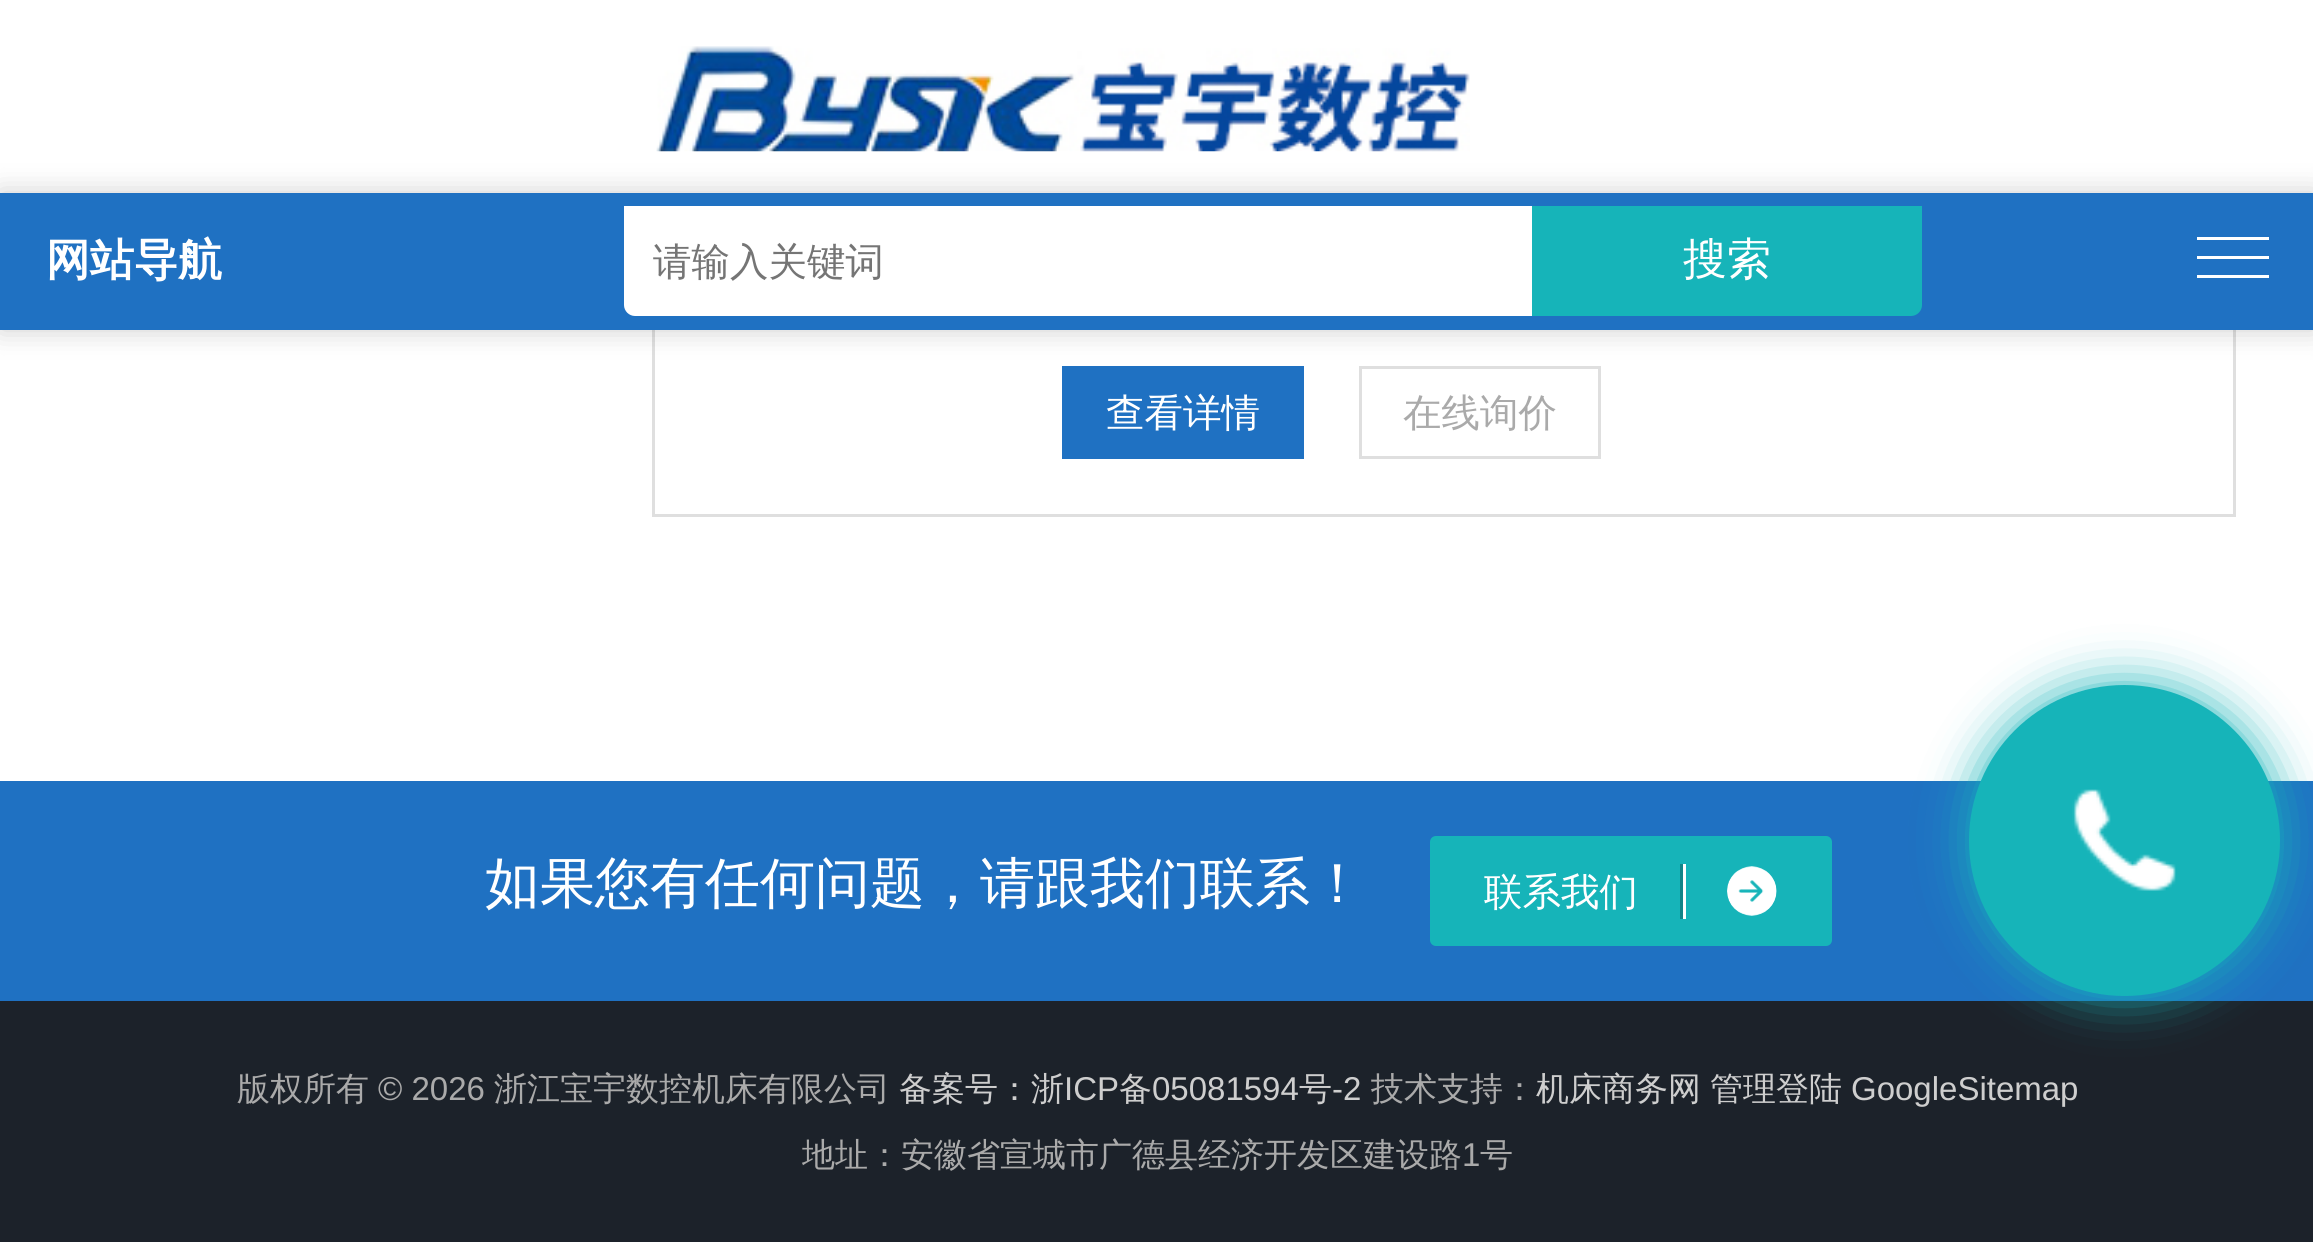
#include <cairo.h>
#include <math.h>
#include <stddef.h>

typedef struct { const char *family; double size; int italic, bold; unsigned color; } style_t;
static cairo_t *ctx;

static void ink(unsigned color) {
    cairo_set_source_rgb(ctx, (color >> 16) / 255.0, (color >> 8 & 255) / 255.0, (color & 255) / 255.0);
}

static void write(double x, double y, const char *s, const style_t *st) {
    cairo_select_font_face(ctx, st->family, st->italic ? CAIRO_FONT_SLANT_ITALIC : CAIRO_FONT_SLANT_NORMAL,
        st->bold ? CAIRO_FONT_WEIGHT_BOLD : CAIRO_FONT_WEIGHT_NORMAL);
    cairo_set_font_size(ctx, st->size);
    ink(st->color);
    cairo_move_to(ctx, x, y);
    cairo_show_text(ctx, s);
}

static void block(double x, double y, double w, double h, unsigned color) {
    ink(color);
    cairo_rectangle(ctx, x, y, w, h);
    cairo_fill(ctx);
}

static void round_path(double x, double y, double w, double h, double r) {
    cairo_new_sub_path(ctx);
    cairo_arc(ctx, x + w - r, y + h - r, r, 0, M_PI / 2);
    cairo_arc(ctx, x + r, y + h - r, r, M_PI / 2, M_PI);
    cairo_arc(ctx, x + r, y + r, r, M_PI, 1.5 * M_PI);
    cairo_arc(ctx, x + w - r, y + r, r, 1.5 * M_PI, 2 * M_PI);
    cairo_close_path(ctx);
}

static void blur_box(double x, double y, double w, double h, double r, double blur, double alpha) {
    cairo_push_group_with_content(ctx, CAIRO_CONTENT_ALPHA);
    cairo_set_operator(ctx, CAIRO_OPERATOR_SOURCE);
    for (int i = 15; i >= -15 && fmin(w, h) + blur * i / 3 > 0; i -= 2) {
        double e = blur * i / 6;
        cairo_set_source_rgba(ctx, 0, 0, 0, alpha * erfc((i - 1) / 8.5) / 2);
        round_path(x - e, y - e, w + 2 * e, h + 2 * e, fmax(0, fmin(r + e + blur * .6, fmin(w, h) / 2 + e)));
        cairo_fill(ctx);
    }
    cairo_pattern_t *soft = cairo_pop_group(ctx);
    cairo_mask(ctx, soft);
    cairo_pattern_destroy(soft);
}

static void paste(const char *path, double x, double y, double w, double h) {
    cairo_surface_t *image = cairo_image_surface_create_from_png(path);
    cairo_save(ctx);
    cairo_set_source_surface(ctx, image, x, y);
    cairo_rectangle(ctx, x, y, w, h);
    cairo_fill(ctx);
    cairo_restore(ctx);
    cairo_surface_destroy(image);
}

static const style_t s1 = {"WenQuanYi Zen Hei", 44, 0, 1, 0xffffff};
static const style_t s2 = {"WenQuanYi Zen Hei Medium", 38.5, 0, 0, 0x757575};
static const style_t s3 = {"WenQuanYi Zen Hei Medium", 44, 0, 0, 0xffffff};
static const style_t s4 = {"WenQuanYi Zen Hei Medium", 38.5, 0, 0, 0xffffff};
static const style_t s5 = {"WenQuanYi Zen Hei Medium", 38.5, 0, 0, 0xaaaaaa};
static const style_t s6 = {"WenQuanYi Zen Hei Medium", 55, 0, 0, 0xffffff};
static const style_t s7 = {"WenQuanYi Zen Hei Medium", 33, 0, 0, 0xaaaaaa};
static const style_t s8 = {"Liberation Sans", 33, 0, 0, 0xaaaaaa};
static const style_t s9 = {"WenQuanYi Zen Hei Medium", 33, 0, 0, 0xcecece};
static const style_t s10 = {"Liberation Sans", 33, 0, 0, 0xcecece};

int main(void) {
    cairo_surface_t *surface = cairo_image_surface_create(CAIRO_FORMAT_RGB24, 2313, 1242);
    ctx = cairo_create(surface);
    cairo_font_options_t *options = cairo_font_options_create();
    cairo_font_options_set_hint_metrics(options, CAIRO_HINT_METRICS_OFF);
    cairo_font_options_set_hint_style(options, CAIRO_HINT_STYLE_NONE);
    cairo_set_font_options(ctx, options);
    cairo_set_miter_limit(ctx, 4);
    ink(0xffffff);
    cairo_paint(ctx);
    cairo_rectangle(ctx, 653.5, -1.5, 1581, 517);
    ink(0xdfdfdf);
    cairo_set_line_width(ctx, 3);
    cairo_stroke(ctx);
    block(652, 0, 1584, 193, 0xffffff);
    paste("pic1.png", 656, 46, 814, 106);
    block(1062, 366, 242, 93, 0x1f71c2);
    cairo_rectangle(ctx, 1360.5, 367.5, 239, 90);
    ink(0xdfdfdf);
    cairo_stroke(ctx);
    ink(0x000000);
    blur_box(0, 193, 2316, 137, 0, 14, 0.2);
    block(0, 193, 2313, 137, 0x1f71c2);
    write(46, 275, "网站导航", &s1);
    block(2197, 237, 72, 3, 0xffffff);
    block(2197, 256, 72, 3, 0xffffff);
    block(2197, 275, 72, 3, 0xffffff);
    cairo_new_path(ctx);
    cairo_move_to(ctx, 624, 206);
    cairo_line_to(ctx, 1532, 206);
    cairo_line_to(ctx, 1532, 316);
    cairo_line_to(ctx, 635, 316);
    cairo_curve_to(ctx, 629, 316, 624, 311, 624, 305);
    cairo_close_path(ctx);
    cairo_fill(ctx);
    write(653, 275, "请输入关键词", &s2);
    ink(0x16b4b9);
    cairo_new_path(ctx);
    cairo_move_to(ctx, 1532, 206);
    cairo_line_to(ctx, 1922, 206);
    cairo_line_to(ctx, 1922, 305);
    cairo_curve_to(ctx, 1922, 311, 1917, 316, 1911, 316);
    cairo_line_to(ctx, 1532, 316);
    cairo_close_path(ctx);
    cairo_fill(ctx);
    write(1683, 274, "搜索", &s3);
    write(1106, 426, "查看详情", &s4);
    write(1403, 426, "在线询价", &s5);
    block(0, 781, 2313, 220, 0x1f71c2);
    write(485, 902, "如果您有任何问题，请跟我们联系！", &s6);
    ink(0x16b4b9);
    round_path(1430, 836, 402, 110, 6);
    cairo_fill(ctx);
    block(1680, 864, 3, 55, 0x138488);
    write(1484, 905, "联系我们", &s4);
    block(1683, 864, 3, 55, 0xffffff);
    paste("pic2.png", 1727, 866, 50, 50);
    block(0, 1001, 2313, 241, 0x1c222a);
    ink(0x16b4b9);
    blur_box(1969, 685, 311, 311, 155.5, 24.5, 1);
    ink(0x16b4b9);
    cairo_arc(ctx, 2124.5, 840.5, 155.5, 0, 2 * M_PI);
    cairo_fill(ctx);
    paste("pic3.png", 2072, 789, 104, 102);
    write(237, 1100, "版权所有", &s7);
    write(378, 1100, "© 2026", &s8);
    write(494, 1100, "浙江宝宇数控机床有限公司", &s7);
    write(899, 1100, "备案号：浙", &s9);
    write(1064, 1100, "ICP", &s10);
    write(1119, 1100, "备", &s9);
    write(1152, 1100, "05081594", &s10);
    write(1299, 1100, "号", &s9);
    write(1332, 1100, "-2", &s10);
    write(1371, 1100, "技术支持：", &s7);
    write(1536, 1100, "机床商务网", &s9);
    write(1710, 1100, "管理登陆", &s9);
    write(1851, 1100, "GoogleSitemap", &s10);
    write(802, 1166, "地址：安徽省宣城市广德县经济开发区建设路", &s7);
    write(1462, 1166, "1", &s8);
    write(1480, 1166, "号", &s7);
    cairo_surface_write_to_png(surface, "screenshot.png");
    cairo_font_options_destroy(options);
    cairo_destroy(ctx);
    cairo_surface_destroy(surface);
    return 0;
}
